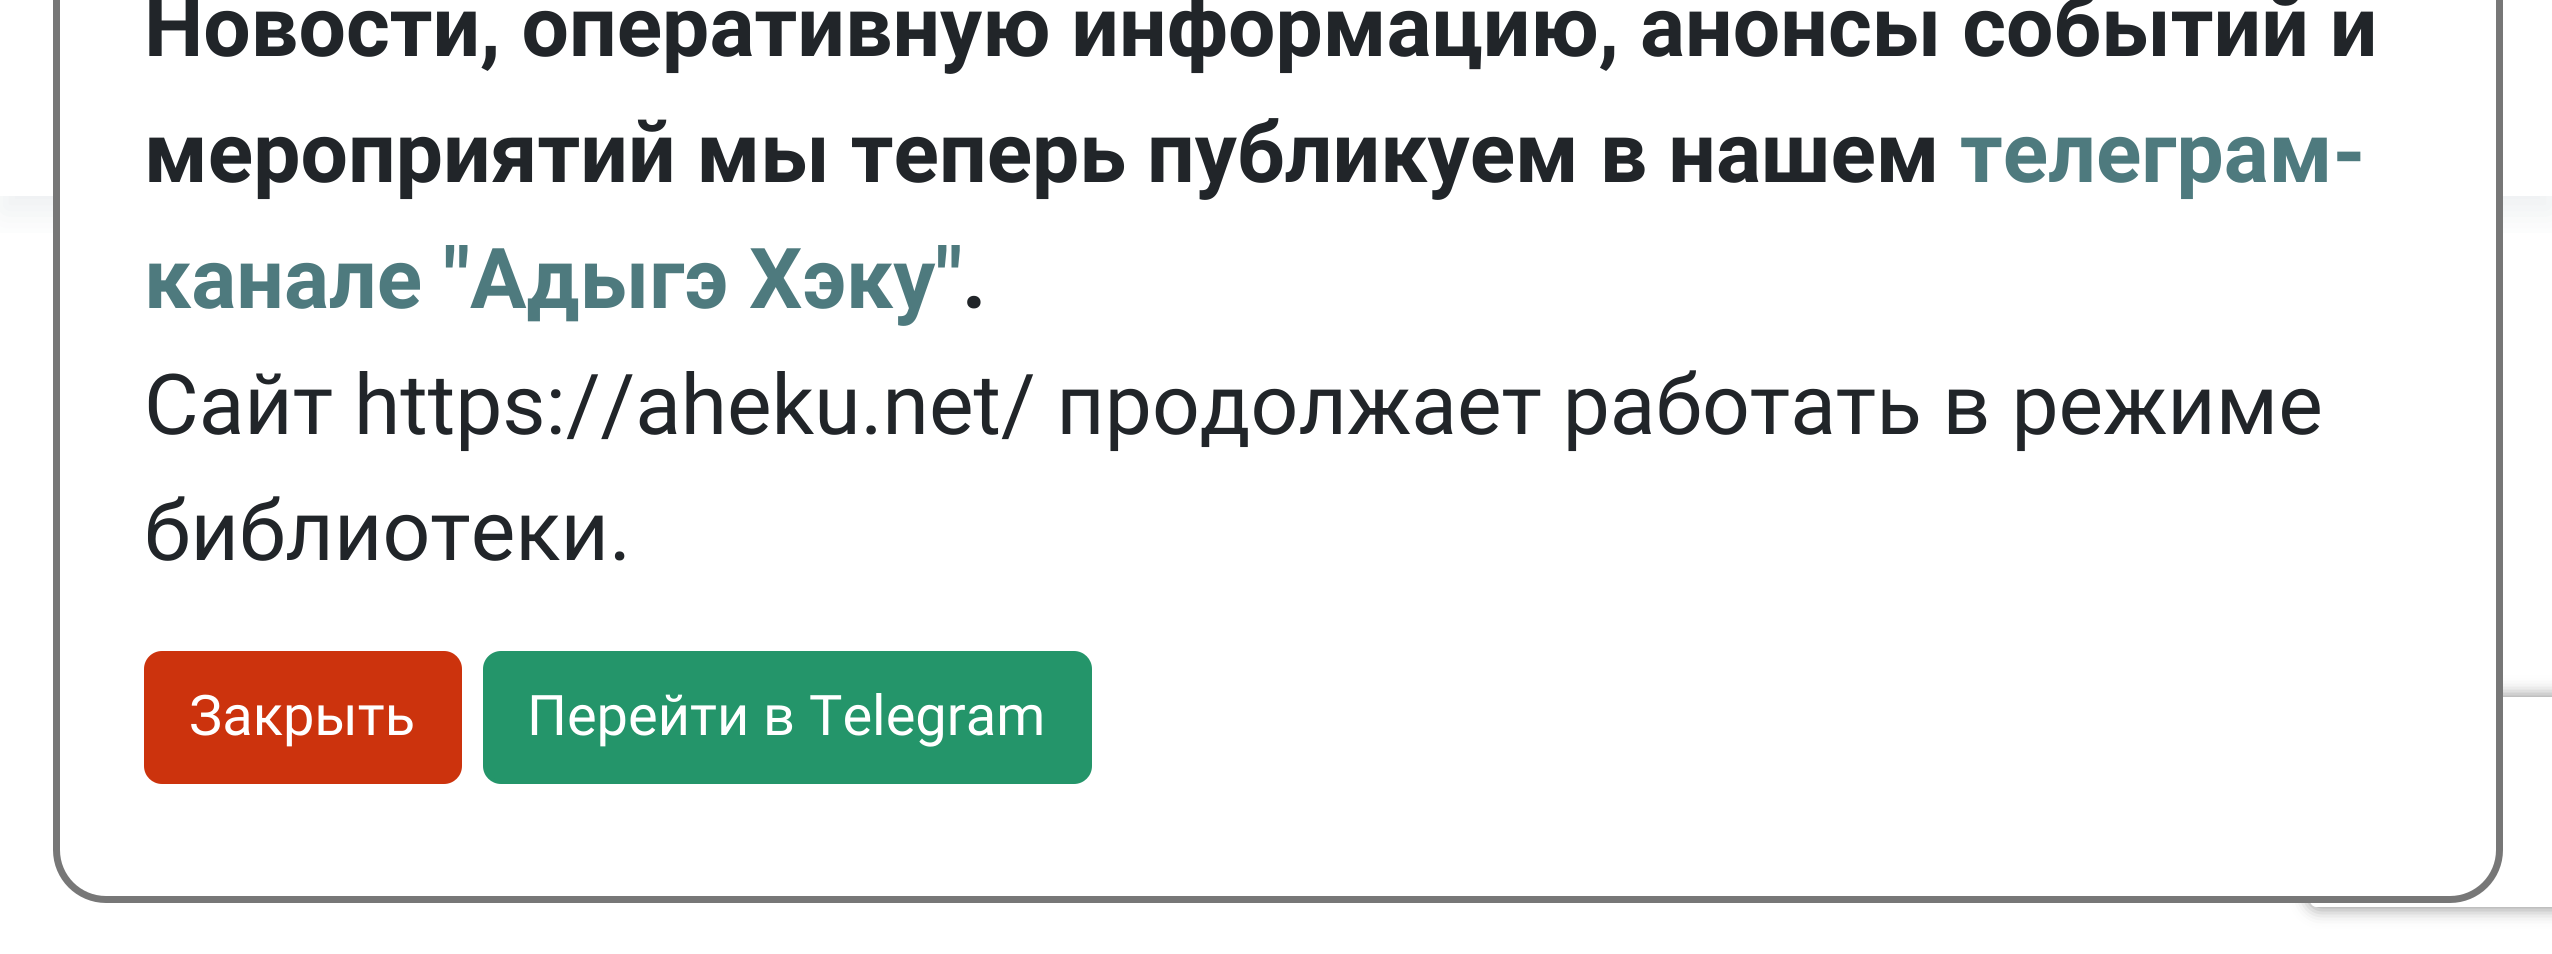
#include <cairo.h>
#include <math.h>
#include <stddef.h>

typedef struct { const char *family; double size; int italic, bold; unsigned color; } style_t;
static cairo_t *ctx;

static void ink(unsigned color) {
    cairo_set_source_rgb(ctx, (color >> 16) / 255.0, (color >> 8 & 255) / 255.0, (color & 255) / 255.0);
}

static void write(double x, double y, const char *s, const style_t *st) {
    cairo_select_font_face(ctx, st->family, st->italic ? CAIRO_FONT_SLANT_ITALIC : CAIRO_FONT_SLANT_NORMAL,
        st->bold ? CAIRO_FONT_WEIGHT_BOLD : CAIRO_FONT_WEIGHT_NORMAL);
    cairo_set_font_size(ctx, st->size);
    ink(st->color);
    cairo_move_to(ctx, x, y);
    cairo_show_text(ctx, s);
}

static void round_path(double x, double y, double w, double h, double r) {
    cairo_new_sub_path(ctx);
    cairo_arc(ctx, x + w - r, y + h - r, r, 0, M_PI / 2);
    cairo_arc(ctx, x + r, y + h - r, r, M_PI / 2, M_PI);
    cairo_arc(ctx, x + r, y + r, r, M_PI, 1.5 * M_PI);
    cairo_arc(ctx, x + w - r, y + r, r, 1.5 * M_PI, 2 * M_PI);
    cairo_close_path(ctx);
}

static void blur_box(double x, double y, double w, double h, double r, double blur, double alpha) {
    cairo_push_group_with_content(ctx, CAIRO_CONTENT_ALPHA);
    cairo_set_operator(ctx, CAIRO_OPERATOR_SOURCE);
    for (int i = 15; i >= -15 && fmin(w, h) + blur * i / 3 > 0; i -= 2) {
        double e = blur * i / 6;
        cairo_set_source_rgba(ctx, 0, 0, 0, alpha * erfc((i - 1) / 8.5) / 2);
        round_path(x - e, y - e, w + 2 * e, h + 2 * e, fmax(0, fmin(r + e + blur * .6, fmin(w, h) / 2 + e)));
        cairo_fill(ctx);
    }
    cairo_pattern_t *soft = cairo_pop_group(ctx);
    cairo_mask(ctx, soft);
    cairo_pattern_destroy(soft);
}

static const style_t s1 = {"Roboto", 84, 0, 1, 0x212529};
static const style_t s2 = {"Roboto", 84, 0, 1, 0x4e7a7e};
static const style_t s3 = {"Roboto", 84, 0, 0, 0x212529};
static const style_t s4 = {"Roboto", 56, 0, 0, 0xffffff};

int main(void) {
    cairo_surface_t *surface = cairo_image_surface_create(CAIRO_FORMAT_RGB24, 2552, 954);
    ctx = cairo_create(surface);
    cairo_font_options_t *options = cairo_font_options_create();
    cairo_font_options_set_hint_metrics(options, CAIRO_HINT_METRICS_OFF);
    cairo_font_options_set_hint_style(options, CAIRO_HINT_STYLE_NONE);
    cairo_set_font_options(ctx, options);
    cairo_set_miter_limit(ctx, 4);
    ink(0xffffff);
    cairo_paint(ctx);
    cairo_save(ctx);
    cairo_rectangle(ctx, 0, 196, 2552, 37);
    cairo_clip(ctx);
    ink(0x8a9ba5);
    blur_box(0, 18, 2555, 196, 0, 17.5, 0.15);
    cairo_restore(ctx);
    cairo_save(ctx);
    cairo_set_fill_rule(ctx, CAIRO_FILL_RULE_EVEN_ODD);
    cairo_new_path(ctx);
    cairo_move_to(ctx, 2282, 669);
    cairo_line_to(ctx, 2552, 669);
    cairo_line_to(ctx, 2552, 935);
    cairo_line_to(ctx, 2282, 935);
    cairo_close_path(ctx);
    cairo_move_to(ctx, 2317, 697);
    cairo_line_to(ctx, 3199, 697);
    cairo_curve_to(ctx, 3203, 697, 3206, 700, 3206, 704);
    cairo_line_to(ctx, 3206, 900);
    cairo_curve_to(ctx, 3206, 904, 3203, 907, 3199, 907);
    cairo_line_to(ctx, 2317, 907);
    cairo_curve_to(ctx, 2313, 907, 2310, 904, 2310, 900);
    cairo_line_to(ctx, 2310, 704);
    cairo_curve_to(ctx, 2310, 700, 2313, 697, 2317, 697);
    cairo_close_path(ctx);
    cairo_clip(ctx);
    ink(0x808080);
    blur_box(2310, 697, 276, 210, 7, 9, 1);
    cairo_restore(ctx);
    ink(0xffffff);
    round_path(56.5, -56.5, 2443, 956, 49.5);
    cairo_fill_preserve(ctx);
    ink(0x777777);
    cairo_set_line_width(ctx, 7);
    cairo_stroke(ctx);
    write(144, 56, "Новости, оперативную информацию, анонсы событий и", &s1);
    write(144, 182, "мероприятий мы теперь публикуем в нашем", &s1);
    write(1960, 182, "телеграм-", &s2);
    write(144, 308, "канале \"Адыгэ Хэку\"", &s2);
    write(962, 308, ".", &s1);
    write(144, 434, "Сайт https://aheku.net/ продолжает работать в режиме", &s3);
    write(144, 560, "библиотеки.", &s3);
    ink(0xcc330d);
    round_path(146, 653, 314, 129, 16);
    cairo_fill_preserve(ctx);
    cairo_set_line_width(ctx, 4);
    cairo_stroke(ctx);
    write(189, 735, "Закрыть", &s4);
    ink(0x24956a);
    round_path(485, 653, 605, 129, 16);
    cairo_fill_preserve(ctx);
    cairo_stroke(ctx);
    write(527, 735, "Перейти в Telegram", &s4);
    cairo_surface_write_to_png(surface, "screenshot.png");
    cairo_font_options_destroy(options);
    cairo_destroy(ctx);
    cairo_surface_destroy(surface);
    return 0;
}
